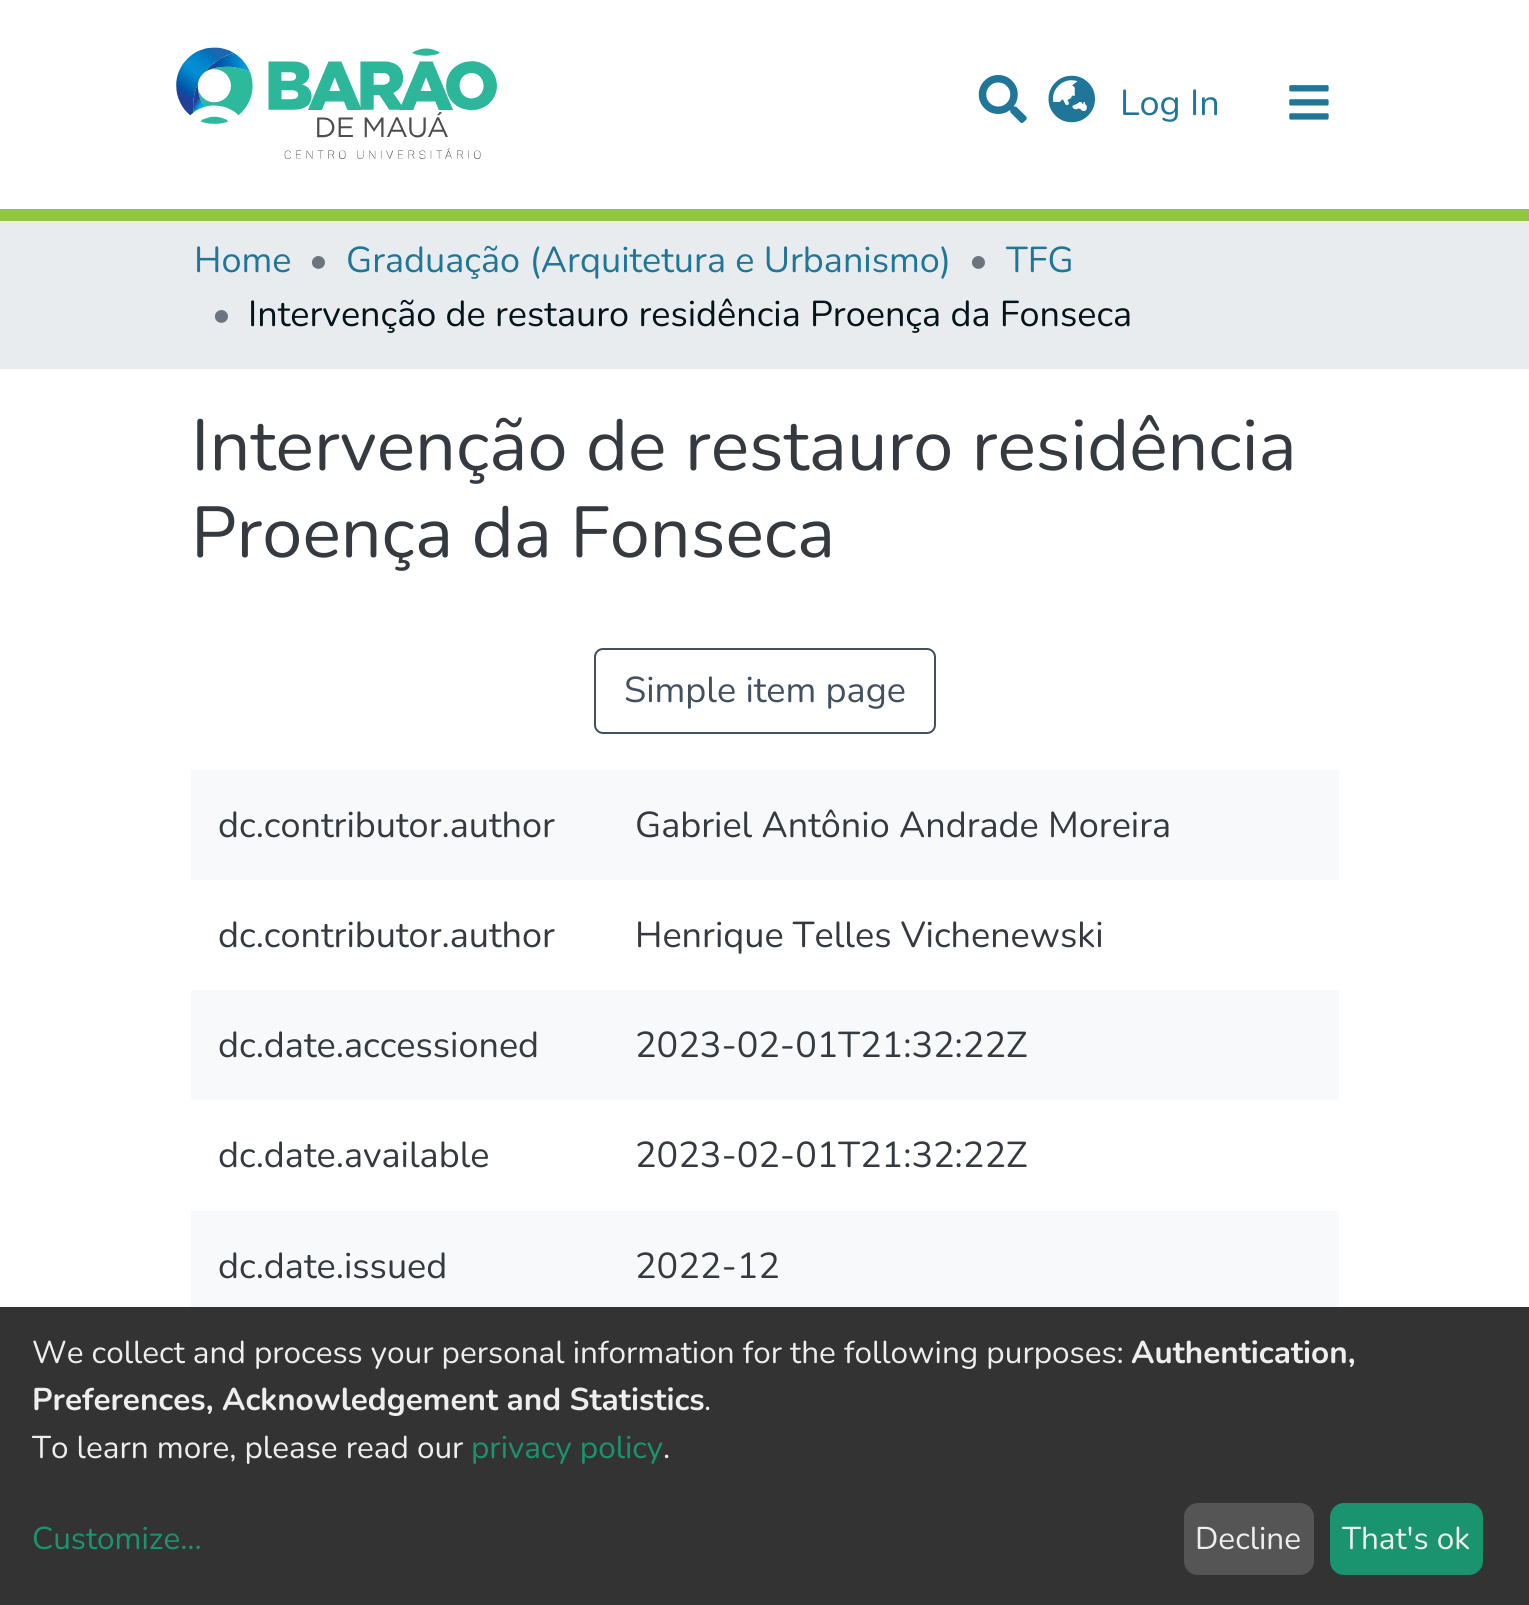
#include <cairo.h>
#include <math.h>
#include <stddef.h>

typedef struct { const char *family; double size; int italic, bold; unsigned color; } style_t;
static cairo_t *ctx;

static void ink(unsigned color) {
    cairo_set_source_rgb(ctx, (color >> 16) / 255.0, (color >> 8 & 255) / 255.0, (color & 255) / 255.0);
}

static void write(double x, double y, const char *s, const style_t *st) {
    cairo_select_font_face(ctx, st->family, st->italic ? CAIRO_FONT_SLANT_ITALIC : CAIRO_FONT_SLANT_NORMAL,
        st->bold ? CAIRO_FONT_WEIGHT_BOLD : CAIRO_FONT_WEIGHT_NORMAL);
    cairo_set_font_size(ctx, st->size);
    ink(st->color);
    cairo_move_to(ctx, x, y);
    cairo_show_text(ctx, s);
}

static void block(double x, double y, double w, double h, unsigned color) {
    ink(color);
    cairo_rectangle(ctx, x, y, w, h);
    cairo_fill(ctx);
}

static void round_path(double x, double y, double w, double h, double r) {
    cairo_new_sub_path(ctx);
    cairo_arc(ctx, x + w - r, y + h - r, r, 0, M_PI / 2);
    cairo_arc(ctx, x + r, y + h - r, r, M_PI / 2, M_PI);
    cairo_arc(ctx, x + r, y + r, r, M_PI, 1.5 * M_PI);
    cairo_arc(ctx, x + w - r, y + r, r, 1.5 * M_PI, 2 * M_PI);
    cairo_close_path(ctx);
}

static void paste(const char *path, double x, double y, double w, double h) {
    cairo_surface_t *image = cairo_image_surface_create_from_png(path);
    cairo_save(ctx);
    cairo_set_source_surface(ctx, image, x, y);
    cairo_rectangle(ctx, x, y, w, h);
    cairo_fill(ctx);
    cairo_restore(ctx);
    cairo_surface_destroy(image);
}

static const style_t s1 = {"Nunito", 36, 0, 0, 0x207698};
static const style_t s2 = {"Nunito", 36, 0, 0, 0x6c757d};
static const style_t s3 = {"Nunito", 36, 0, 0, 0x05141a};
static const style_t s4 = {"Nunito", 72, 0, 0, 0x343a40};
static const style_t s5 = {"Nunito", 36, 0, 0, 0x43515f};
static const style_t s6 = {"Nunito", 36, 0, 0, 0x343a40};
static const style_t s7 = {"Nunito", 31.5, 0, 0, 0xeeeeee};
static const style_t s8 = {"Nunito", 31.5, 0, 1, 0xeeeeee};
static const style_t s9 = {"Nunito", 31.5, 0, 0, 0x1a936f};

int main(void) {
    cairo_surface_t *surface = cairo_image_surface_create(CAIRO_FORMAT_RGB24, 1529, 1605);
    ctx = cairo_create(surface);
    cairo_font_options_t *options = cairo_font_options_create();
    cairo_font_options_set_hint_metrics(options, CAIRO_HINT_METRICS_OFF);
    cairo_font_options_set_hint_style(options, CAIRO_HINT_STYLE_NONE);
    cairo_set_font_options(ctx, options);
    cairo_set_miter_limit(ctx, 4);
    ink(0xffffff);
    cairo_paint(ctx);
    paste("pic1.png", 176, 47, 321, 112);
    paste("pic2.png", 978, 75, 49, 48);
    paste("pic3.png", 1048, 75, 47, 48);
    write(1120, 115, "Log In", &s1);
    paste("pic4.png", 1289, 85, 40, 35);
    block(0, 209, 1529, 12, 0x92c642);
    block(0, 221, 1529, 148, 0xe9ecef);
    write(194, 272, "Home", &s1);
    write(309, 272, "•", &s2);
    write(346, 272, "Graduação (Arquitetura e Urbanismo)", &s1);
    write(969, 272, "•", &s2);
    write(1006, 272, "TFG", &s1);
    write(212, 326, "•", &s2);
    write(248, 326, "Intervenção de restauro residência Proença da Fonseca", &s3);
    write(191, 470, "Intervenção de restauro residência", &s4);
    write(191, 557, "Proença da Fonseca", &s4);
    round_path(595, 649, 340, 84, 8);
    ink(0x43515f);
    cairo_stroke(ctx);
    write(624, 702, "Simple item page", &s5);
    block(191, 770, 1148, 110, 0xf8f9fa);
    write(218, 837, "dc.contributor.author", &s6);
    write(635, 837, "Gabriel Antônio Andrade Moreira", &s6);
    write(218, 947, "dc.contributor.author", &s6);
    write(635, 947, "Henrique Telles Vichenewski", &s6);
    block(191, 990, 1148, 110, 0xf8f9fa);
    write(218, 1057, "dc.date.accessioned", &s6);
    write(635, 1057, "2023-02-01T21:32:22Z", &s6);
    write(218, 1167, "dc.date.available", &s6);
    write(635, 1167, "2023-02-01T21:32:22Z", &s6);
    block(191, 1211, 1148, 96, 0xf8f9fa);
    write(218, 1278, "dc.date.issued", &s6);
    write(635, 1278, "2022-12", &s6);
    block(0, 1307, 1529, 298, 0x333333);
    write(32, 1363, "We collect and process your personal information for the following purposes:", &s7);
    write(1131, 1363, "Authentication,", &s8);
    write(32, 1410, "Preferences, Acknowledgement and Statistics", &s8);
    write(704, 1410, ".", &s7);
    write(32, 1458, "To learn more, please read our", &s7);
    write(471, 1458, "privacy policy", &s9);
    write(663, 1458, ".", &s7);
    write(32, 1549, "Customize...", &s9);
    ink(0x555555);
    round_path(1184, 1503, 130, 72, 14);
    cairo_fill(ctx);
    write(1195, 1549, "Decline", &s7);
    ink(0x1a936f);
    round_path(1330, 1503, 153, 72, 14);
    cairo_fill(ctx);
    write(1342, 1549, "That's ok", &s7);
    cairo_surface_write_to_png(surface, "screenshot.png");
    cairo_font_options_destroy(options);
    cairo_destroy(ctx);
    cairo_surface_destroy(surface);
    return 0;
}
